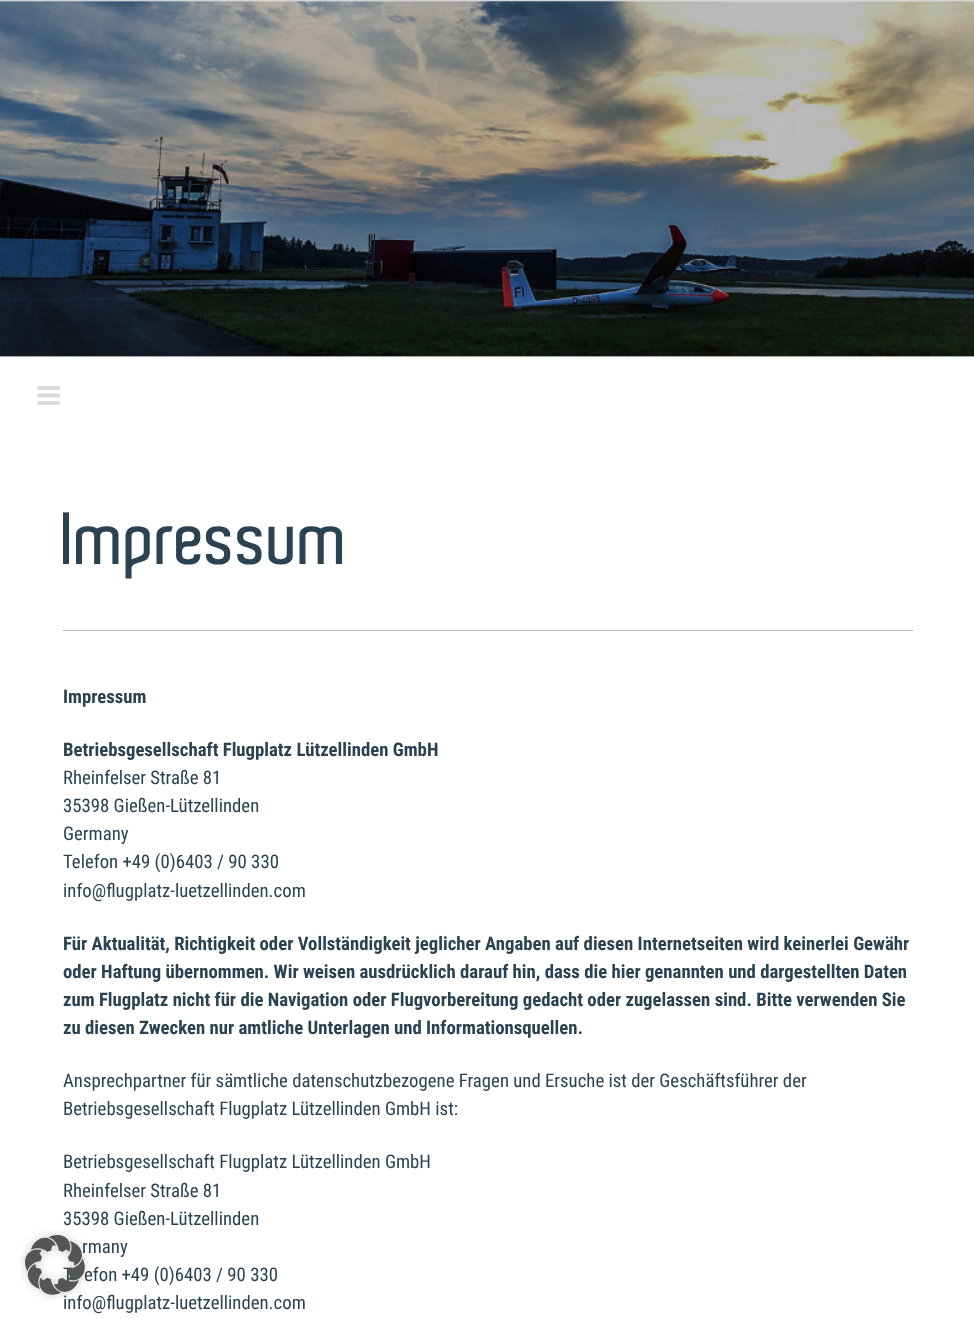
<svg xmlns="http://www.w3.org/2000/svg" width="974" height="1319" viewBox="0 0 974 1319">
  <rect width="100%" height="100%" fill="#ffffff"/>
  <text x="82" y="1253" font-family="Roboto Condensed" font-size="18.75" fill="#2a4251">rmany</text>
  <text x="63" y="1281" font-family="Roboto Condensed" font-size="18.75" fill="#2a4251">T</text>
  <text x="84" y="1281" font-family="Roboto Condensed" font-size="18.75" fill="#2a4251">efon +49 (0)6403 / 90 330</text>
  <text x="63" y="1309" font-family="Roboto Condensed" font-size="18.75" fill="#2a4251">info@flugplatz-luetzellinden.com</text>
  <image x="20" y="1230" width="70" height="70" href="img1.png"/>
  <rect x="0" y="0" width="974" height="1" fill="#d2d3d4"/>
  <rect x="0" y="356" width="974" height="1" fill="#d2d3d4"/>
  <image x="0" y="1" width="974" height="356" href="img2.png"/>
  <image x="37" y="386" width="23" height="19" href="img3.png"/>
  <text x="63" y="564" font-family="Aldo" font-size="71.25" font-weight="600" fill="#2a4251">Impressum</text>
  <rect x="63" y="630" width="850" height="1" fill="#b7b5b7"/>
  <text x="63" y="703" font-family="Roboto Condensed" font-size="18.75" font-weight="bold" fill="#2a4251">Impressum</text>
  <text x="63" y="756" font-family="Roboto Condensed" font-size="18.75" font-weight="bold" fill="#2a4251">Betriebsgesellschaft Flugplatz Lützellinden GmbH</text>
  <text x="63" y="784" font-family="Roboto Condensed" font-size="18.75" fill="#2a4251">Rheinfelser Straße 81</text>
  <text x="63" y="812" font-family="Roboto Condensed" font-size="18.75" fill="#2a4251">35398 Gießen-Lützellinden</text>
  <text x="63" y="840" font-family="Roboto Condensed" font-size="18.75" fill="#2a4251">Germany</text>
  <text x="63" y="868" font-family="Roboto Condensed" font-size="18.75" fill="#2a4251">Telefon +49 (0)6403 / 90 330</text>
  <text x="63" y="897" font-family="Roboto Condensed" font-size="18.75" fill="#2a4251">info@flugplatz-luetzellinden.com</text>
  <text x="63" y="950" font-family="Roboto Condensed" font-size="18.75" font-weight="bold" fill="#2a4251">Für Aktualität, Richtigkeit oder Vollständigkeit jeglicher Angaben auf diesen Internetseiten wird keinerlei Gewähr</text>
  <text x="63" y="978" font-family="Roboto Condensed" font-size="18.75" font-weight="bold" fill="#2a4251">oder Haftung übernommen. Wir weisen ausdrücklich darauf hin, dass die hier genannten und dargestellten Daten</text>
  <text x="63" y="1006" font-family="Roboto Condensed" font-size="18.75" font-weight="bold" fill="#2a4251">zum Flugplatz nicht für die Navigation oder Flugvorbereitung gedacht oder zugelassen sind. Bitte verwenden Sie</text>
  <text x="63" y="1034" font-family="Roboto Condensed" font-size="18.75" font-weight="bold" fill="#2a4251">zu diesen Zwecken nur amtliche Unterlagen und Informationsquellen.</text>
  <text x="63" y="1087" font-family="Roboto Condensed" font-size="18.75" fill="#2a4251">Ansprechpartner für sämtliche datenschutzbezogene Fragen und Ersuche ist der Geschäftsführer der</text>
  <text x="63" y="1115" font-family="Roboto Condensed" font-size="18.75" fill="#2a4251">Betriebsgesellschaft Flugplatz Lützellinden GmbH ist:</text>
  <text x="63" y="1168" font-family="Roboto Condensed" font-size="18.75" fill="#2a4251">Betriebsgesellschaft Flugplatz Lützellinden GmbH</text>
  <text x="63" y="1197" font-family="Roboto Condensed" font-size="18.75" fill="#2a4251">Rheinfelser Straße 81</text>
  <text x="63" y="1225" font-family="Roboto Condensed" font-size="18.75" fill="#2a4251">35398 Gießen-Lützellinden</text>
</svg>
